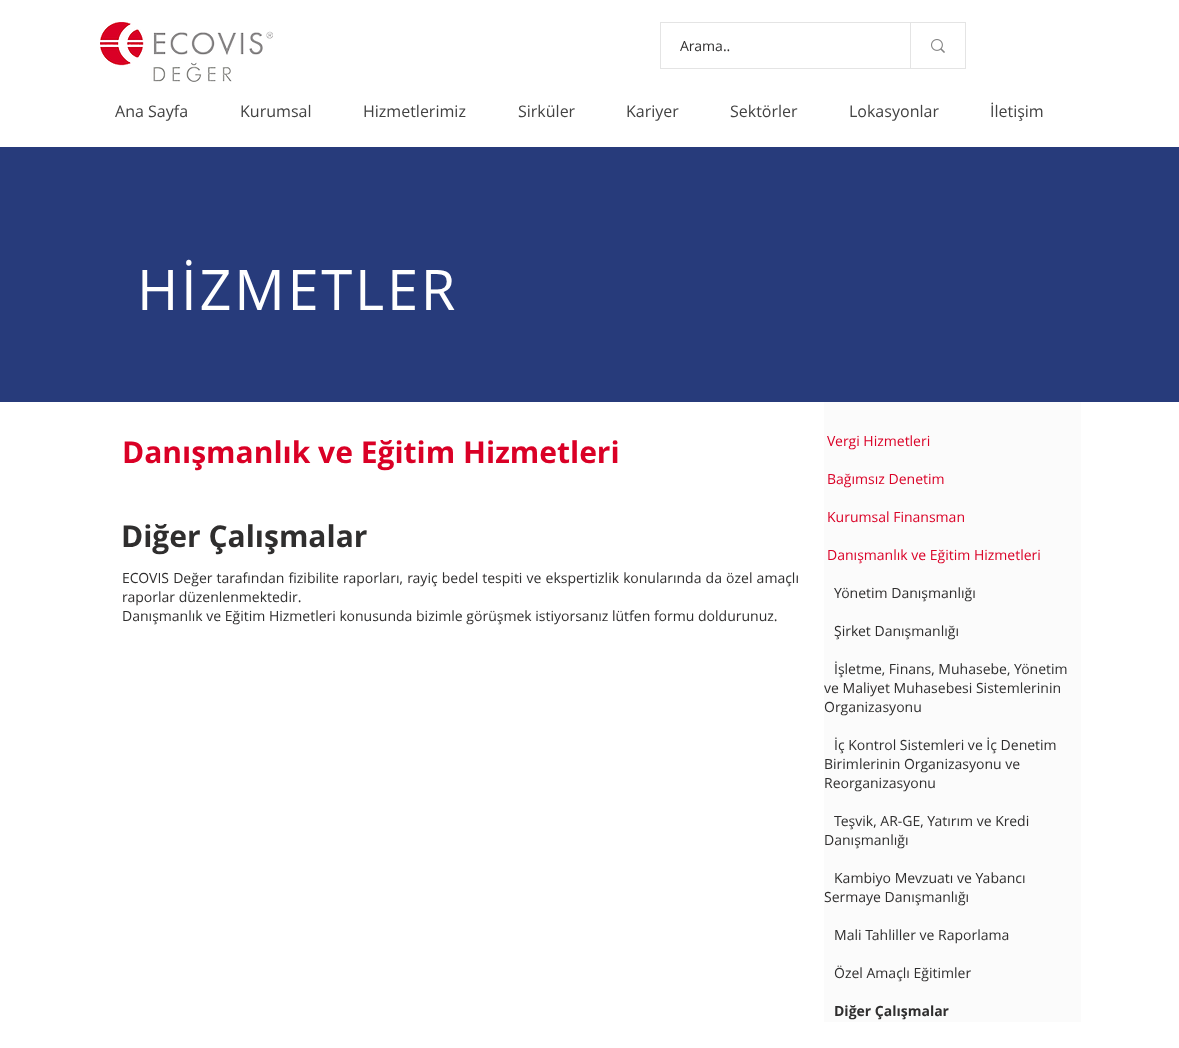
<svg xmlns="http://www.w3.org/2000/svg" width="1179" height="1048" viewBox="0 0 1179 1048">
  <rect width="100%" height="100%" fill="#ffffff"/>
  <image x="100" y="22" width="173" height="60" href="img1.png"/>
  <rect x="660.5" y="22.5" width="305" height="46" fill="none" stroke="#e4e4e4"/>
  <text x="680" y="51" font-family="Open Sans" font-size="14" fill="#2f2e2e">Arama..</text>
  <rect x="910" y="23" width="1" height="45" fill="#e4e4e4"/>
  <image x="931" y="39" width="14" height="14" href="img2.png"/>
  <text x="115" y="117" font-family="Open Sans" font-size="16" fill="#424242">Ana Sayfa</text>
  <text x="240" y="117" font-family="Open Sans" font-size="16" fill="#424242">Kurumsal</text>
  <text x="363" y="117" font-family="Open Sans" font-size="16" fill="#424242">Hizmetlerimiz</text>
  <text x="518" y="117" font-family="Open Sans" font-size="16" fill="#424242">Sirküler</text>
  <text x="626" y="117" font-family="Open Sans" font-size="16" fill="#424242">Kariyer</text>
  <text x="730" y="117" font-family="Open Sans" font-size="16" fill="#424242">Sektörler</text>
  <text x="849" y="117" font-family="Open Sans" font-size="16" fill="#424242">Lokasyonlar</text>
  <text x="990" y="117" font-family="Open Sans" font-size="16" fill="#424242">İletişim</text>
  <rect x="0" y="147" width="1179" height="255" fill="#273b7b"/>
  <text x="137" y="310" font-family="Open Sans" font-size="56" letter-spacing="2.75" fill="#ffffff">HİZMETLER</text>
  <rect x="824" y="402" width="257" height="620" fill="#fbfbfb"/>
  <text x="122" y="463" font-family="Open Sans" font-size="30" font-weight="bold" fill="#da0026">Danışmanlık ve Eğitim Hizmetleri</text>
  <text x="827" y="446" font-family="Open Sans" font-size="14" fill="#da0026">Vergi Hizmetleri</text>
  <text x="827" y="484" font-family="Open Sans" font-size="14" fill="#da0026">Bağımsız Denetim</text>
  <text x="827" y="522" font-family="Open Sans" font-size="14" fill="#da0026">Kurumsal Finansman</text>
  <text x="827" y="560" font-family="Open Sans" font-size="14" fill="#da0026">Danışmanlık ve Eğitim Hizmetleri</text>
  <text x="834" y="598" font-family="Open Sans" font-size="14" fill="#2f2e2e">Yönetim Danışmanlığı</text>
  <text x="834" y="636" font-family="Open Sans" font-size="14" fill="#2f2e2e">Şirket Danışmanlığı</text>
  <text x="834" y="674" font-family="Open Sans" font-size="14" fill="#2f2e2e">İşletme, Finans, Muhasebe, Yönetim</text>
  <text x="824" y="693" font-family="Open Sans" font-size="14" fill="#2f2e2e">ve Maliyet Muhasebesi Sistemlerinin</text>
  <text x="824" y="712" font-family="Open Sans" font-size="14" fill="#2f2e2e">Organizasyonu</text>
  <text x="834" y="750" font-family="Open Sans" font-size="14" fill="#2f2e2e">İç Kontrol Sistemleri ve İç Denetim</text>
  <text x="824" y="769" font-family="Open Sans" font-size="14" fill="#2f2e2e">Birimlerinin Organizasyonu ve</text>
  <text x="824" y="788" font-family="Open Sans" font-size="14" fill="#2f2e2e">Reorganizasyonu</text>
  <text x="834" y="826" font-family="Open Sans" font-size="14" fill="#2f2e2e">Teşvik, AR-GE, Yatırım ve Kredi</text>
  <text x="824" y="845" font-family="Open Sans" font-size="14" fill="#2f2e2e">Danışmanlığı</text>
  <text x="834" y="883" font-family="Open Sans" font-size="14" fill="#2f2e2e">Kambiyo Mevzuatı ve Yabancı</text>
  <text x="824" y="902" font-family="Open Sans" font-size="14" fill="#2f2e2e">Sermaye Danışmanlığı</text>
  <text x="834" y="940" font-family="Open Sans" font-size="14" fill="#2f2e2e">Mali Tahliller ve Raporlama</text>
  <text x="834" y="978" font-family="Open Sans" font-size="14" fill="#2f2e2e">Özel Amaçlı Eğitimler</text>
  <text x="834" y="1016" font-family="Open Sans" font-size="14" font-weight="bold" fill="#2f2e2e">Diğer Çalışmalar</text>
  <text x="121" y="547" font-family="Open Sans" font-size="30" font-weight="bold" fill="#2f2e2e">Diğer Çalışmalar</text>
  <text x="122" y="583" word-spacing="0.5" font-family="Open Sans" font-size="14" fill="#2f2e2e">ECOVIS Değer tarafından fizibilite raporları, rayiç bedel tespiti ve ekspertizlik konularında da özel amaçlı</text>
  <text x="122" y="602" font-family="Open Sans" font-size="14" fill="#2f2e2e">raporlar düzenlenmektedir.</text>
  <text x="122" y="621" font-family="Open Sans" font-size="14" fill="#2f2e2e">Danışmanlık ve Eğitim Hizmetleri konusunda bizimle görüşmek istiyorsanız lütfen formu doldurunuz.</text>
</svg>
